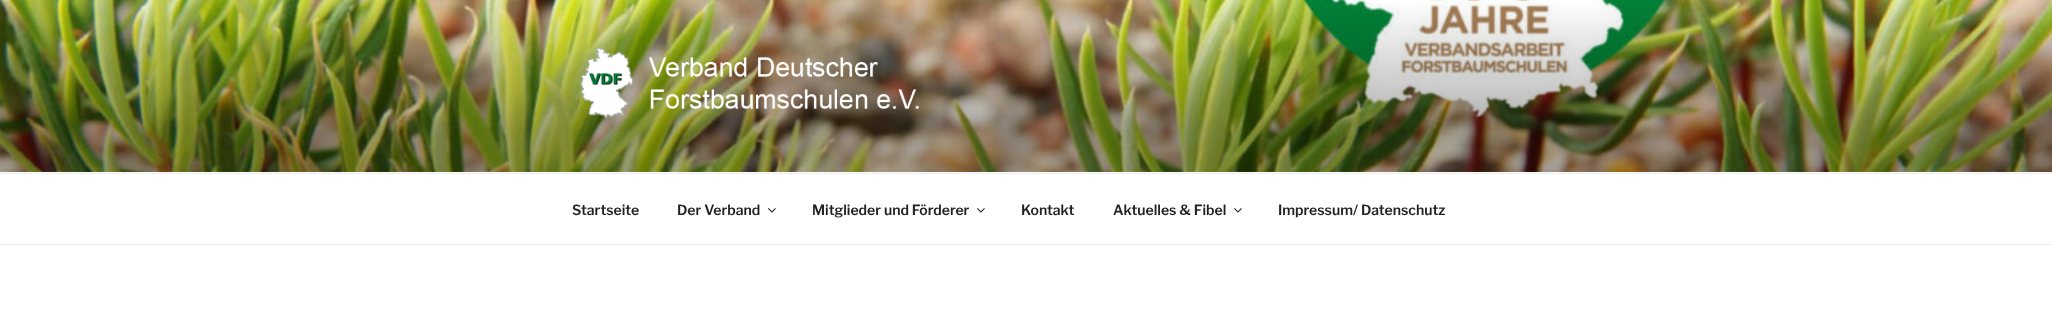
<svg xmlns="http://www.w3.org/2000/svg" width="2052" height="309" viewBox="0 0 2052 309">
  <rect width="100%" height="100%" fill="#ffffff"/>
  <rect x="0" y="172" width="2052" height="1" fill="#fafafa"/>
  <image x="0" y="0" width="2052" height="172" href="img1.png"/>
  <image x="580" y="48" width="339" height="70" href="img2.png"/>
  <rect x="0" y="173" width="2052" height="1" fill="#eeeeee"/>
  <rect x="0" y="244" width="2052" height="1" fill="#eeeeee"/>
  <text x="572" y="215" font-family="Libre Franklin" font-size="14" font-weight="600" fill="#222222">Startseite</text>
  <text x="677" y="215" font-family="Libre Franklin" font-size="14" font-weight="600" fill="#222222">Der Verband</text>
  <image x="768" y="208" width="8" height="5" href="img3.png"/>
  <text x="812" y="215" font-family="Libre Franklin" font-size="14" font-weight="600" fill="#222222">Mitglieder und Förderer</text>
  <image x="977" y="208" width="8" height="5" href="img3.png"/>
  <text x="1021" y="215" font-family="Libre Franklin" font-size="14" font-weight="600" fill="#222222">Kontakt</text>
  <text x="1113" y="215" font-family="Libre Franklin" font-size="14" font-weight="600" fill="#222222">Aktuelles &amp; Fibel</text>
  <image x="1234" y="208" width="8" height="5" href="img3.png"/>
  <text x="1278" y="215" font-family="Libre Franklin" font-size="14" font-weight="600" fill="#222222">Impressum/ Datenschutz</text>
</svg>
